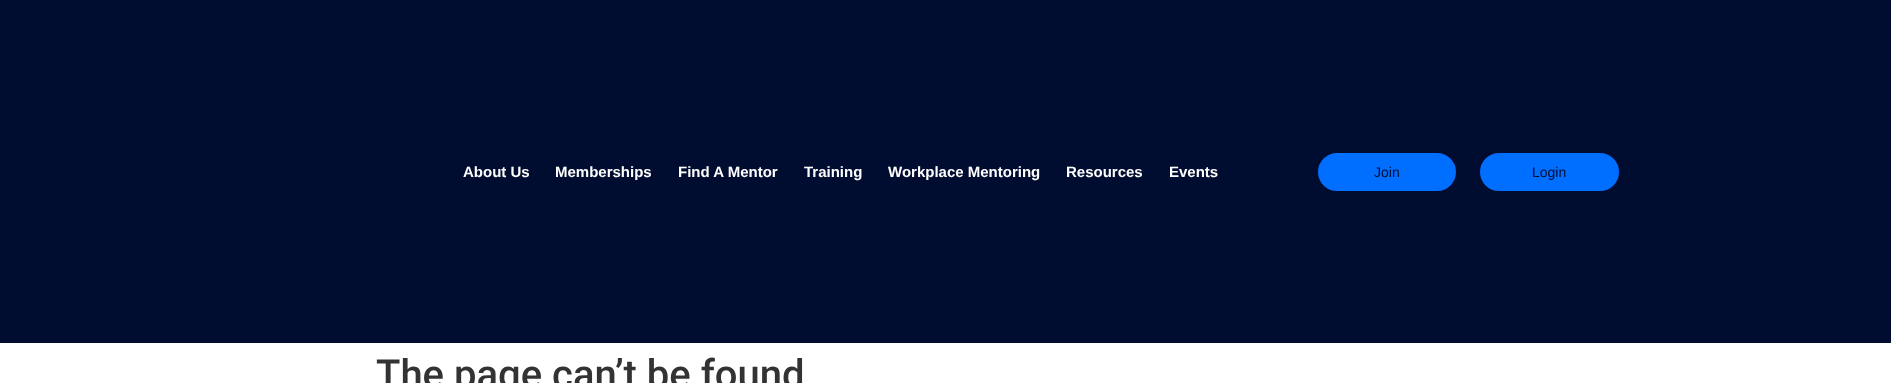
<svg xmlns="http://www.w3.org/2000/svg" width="1891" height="383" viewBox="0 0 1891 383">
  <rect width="100%" height="100%" fill="#ffffff"/>
  <rect x="0" y="0" width="1891" height="343" fill="#000c30"/>
  <text x="463" y="177" font-family="Liberation Sans" font-size="15" font-weight="bold" fill="#ffffff">About Us</text>
  <text x="555" y="177" font-family="Liberation Sans" font-size="15" font-weight="bold" fill="#ffffff">Memberships</text>
  <text x="678" y="177" font-family="Liberation Sans" font-size="15" font-weight="bold" fill="#ffffff">Find A Mentor</text>
  <text x="804" y="177" font-family="Liberation Sans" font-size="15" font-weight="bold" fill="#ffffff">Training</text>
  <text x="888" y="177" font-family="Liberation Sans" font-size="15" font-weight="bold" fill="#ffffff">Workplace Mentoring</text>
  <text x="1066" y="177" font-family="Liberation Sans" font-size="15" font-weight="bold" fill="#ffffff">Resources</text>
  <text x="1169" y="177" font-family="Liberation Sans" font-size="15" font-weight="bold" fill="#ffffff">Events</text>
  <rect x="1317" y="152" width="140" height="40" rx="20" fill="#006eff" stroke="#000c30" stroke-width="2"/>
  <text x="1374" y="177" font-family="Liberation Sans" font-size="14" fill="#000c30">Join</text>
  <rect x="1479" y="152" width="141" height="40" rx="20" fill="#006eff" stroke="#000c30" stroke-width="2"/>
  <text x="1532" y="177" font-family="Liberation Sans" font-size="14" fill="#000c30">Login</text>
  <text x="376" y="388" font-family="Roboto" font-size="40" font-weight="500" fill="#333333">The page can’t be found</text>
</svg>
